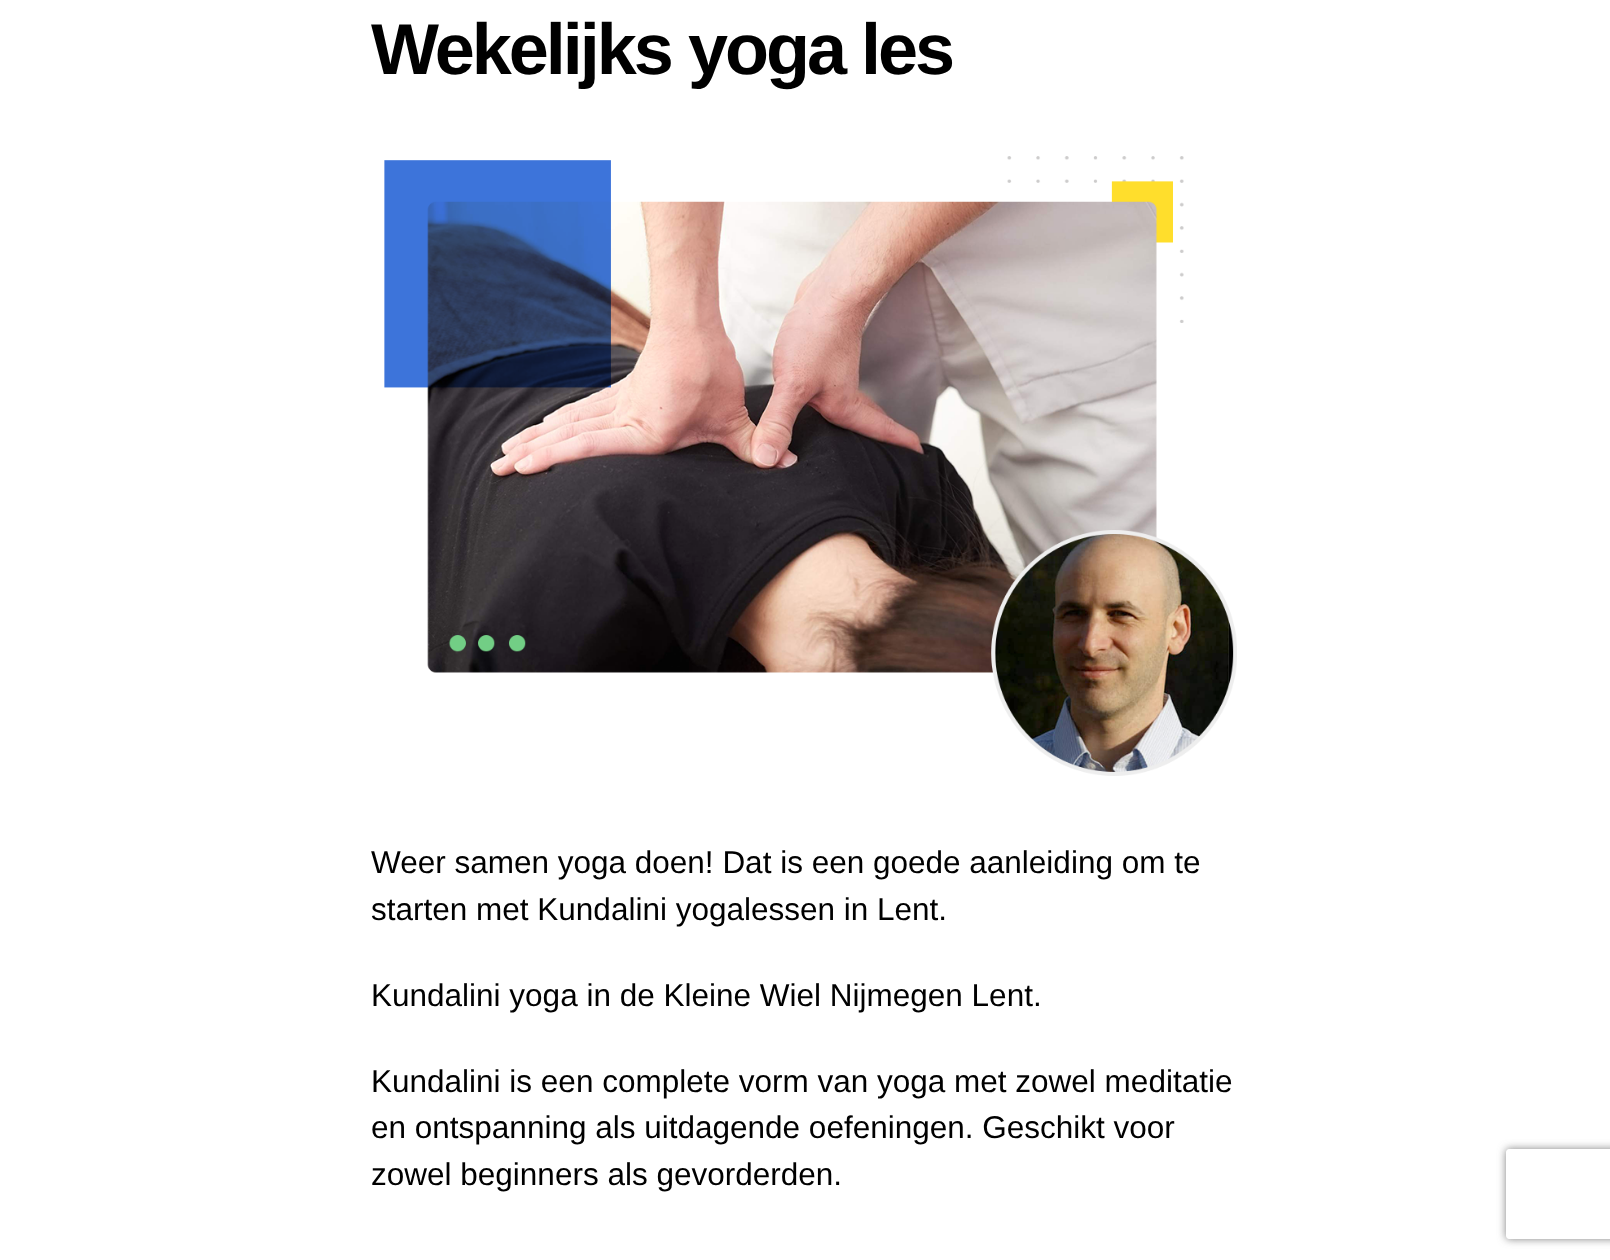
<svg xmlns="http://www.w3.org/2000/svg" width="1610" height="1260" viewBox="0 0 1610 1260">
  <defs>
    <clipPath id="clip1"><path d="M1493 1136H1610V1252H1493ZM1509 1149H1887C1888.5 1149 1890 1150.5 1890 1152V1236C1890 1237.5 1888.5 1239 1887 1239H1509C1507.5 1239 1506 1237.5 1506 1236V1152C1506 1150.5 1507.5 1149 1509 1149Z" clip-rule="evenodd"/></clipPath>
    <filter id="blur1" x="-50%" y="-200%" width="200%" height="500%"><feGaussianBlur stdDeviation="4"/></filter>
  </defs>
  <rect width="100%" height="100%" fill="#ffffff"/>
  <text x="371" y="74" font-family="Liberation Sans" font-size="72" font-weight="bold" letter-spacing="-3" fill="#000000">Wekelijks yoga les</text>
  <image x="384" y="156" width="853" height="620" href="img1.png"/>
  <text x="371" y="873" font-family="Liberation Sans" font-size="31.5" fill="#000000">Weer samen yoga doen! Dat is een goede aanleiding om te</text>
  <text x="371" y="920" font-family="Liberation Sans" font-size="31.5" fill="#000000">starten met Kundalini yogalessen in Lent.</text>
  <text x="371" y="1006" font-family="Liberation Sans" font-size="31.5" fill="#000000">Kundalini yoga in de Kleine Wiel Nijmegen Lent.</text>
  <text x="371" y="1092" font-family="Liberation Sans" font-size="31.5" fill="#000000">Kundalini is een complete vorm van yoga met zowel meditatie</text>
  <text x="371" y="1138" font-family="Liberation Sans" font-size="31.5" fill="#000000">en ontspanning als uitdagende oefeningen. Geschikt voor</text>
  <text x="371" y="1185" font-family="Liberation Sans" font-size="31.5" fill="#000000">zowel beginners als gevorderden.</text>
  <g clip-path="url(#clip1)">
    <rect x="1506" y="1149" width="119" height="90" rx="3" fill="#808080" filter="url(#blur1)"/>
  </g>
</svg>
